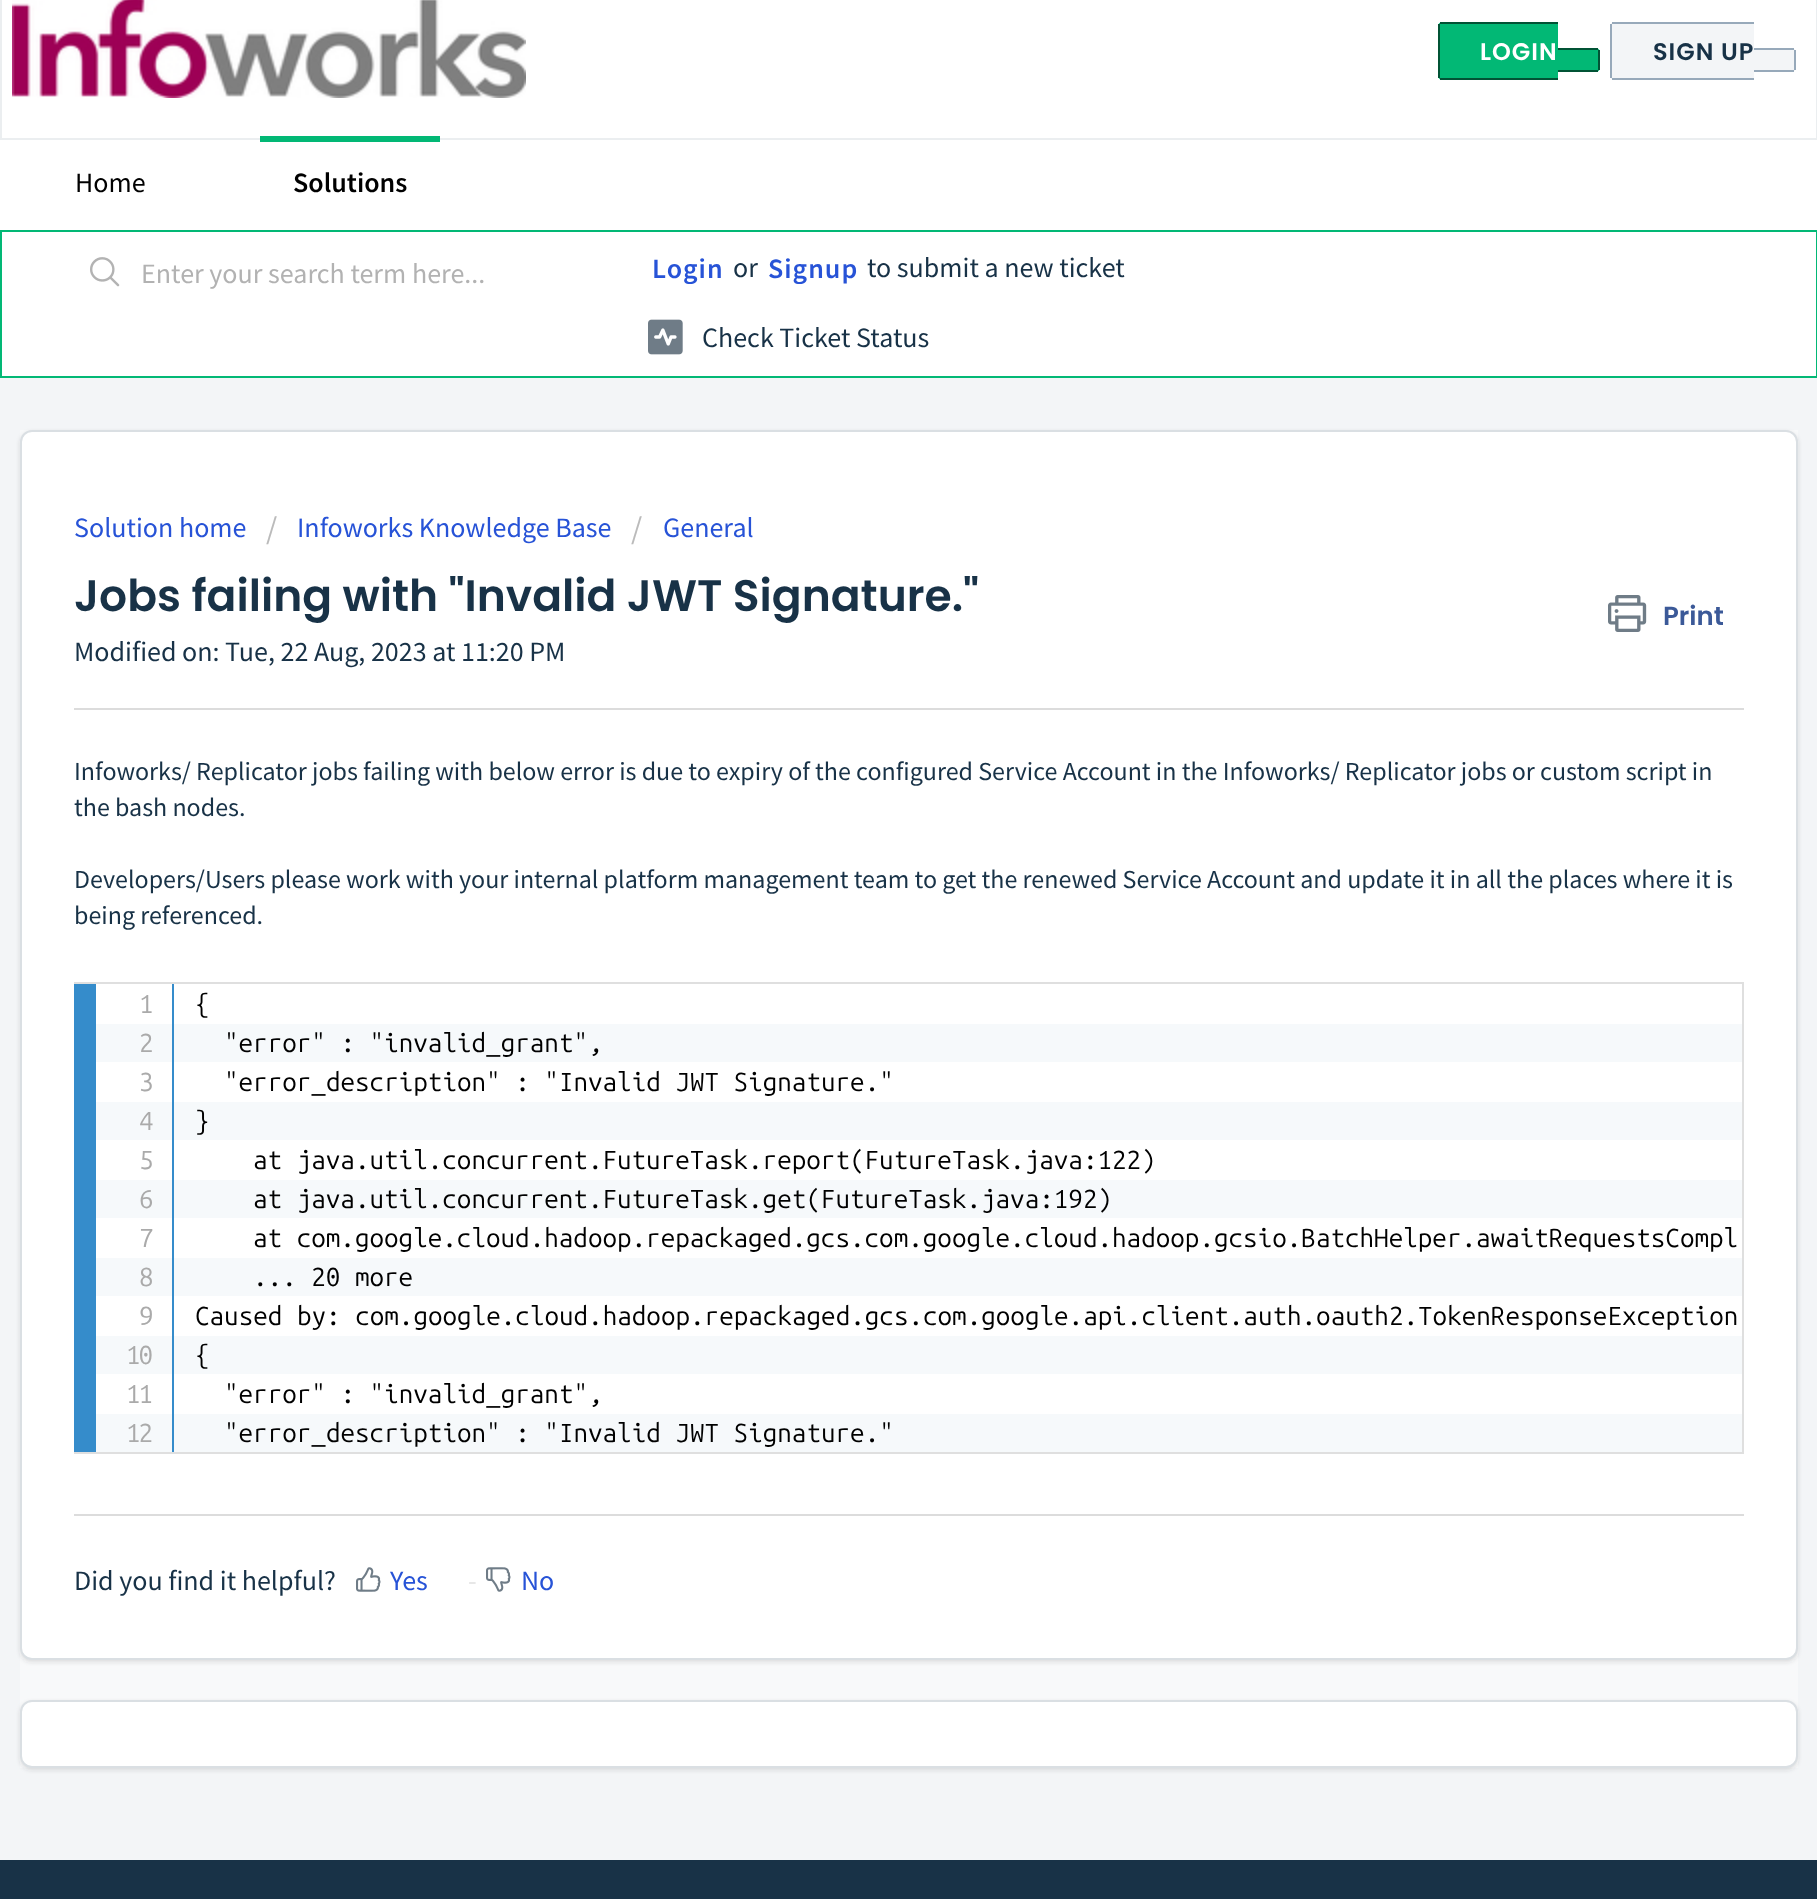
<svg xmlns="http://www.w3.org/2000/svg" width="1817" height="1899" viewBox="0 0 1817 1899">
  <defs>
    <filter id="blur1" x="-50%" y="-200%" width="200%" height="500%"><feGaussianBlur stdDeviation="2"/></filter>
  </defs>
  <rect width="100%" height="100%" fill="#f3f5f7"/>
  <rect x="1" y="-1" width="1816" height="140" fill="#ffffff" stroke="#ebeef0" stroke-width="2"/>
  <image x="12" y="0" width="514" height="98" href="img1.png"/>
  <path d="M1442 22H1558V80H1442C1440 80 1438 78 1438 76V26C1438 24 1440 22 1442 22Z" fill="#02b875"/>
  <text x="1480" y="60" font-family="Poppins" font-size="24" font-weight="600" letter-spacing="1" fill="#ffffff">LOGIN</text>
  <rect x="1440" y="22" width="118" height="2" fill="#015335"/>
  <rect x="1440" y="78" width="118" height="2" fill="#015335"/>
  <rect x="1438" y="24" width="2" height="54" fill="#015335"/>
  <path d="M1558 48H1596C1598 48 1600 50 1600 52V68C1600 70 1598 72 1596 72H1558Z" fill="#02b875"/>
  <rect x="1558" y="48" width="40" height="2" fill="#015335"/>
  <rect x="1598" y="50" width="2" height="20" fill="#015335"/>
  <rect x="1558" y="70" width="40" height="2" fill="#015335"/>
  <path d="M1614 22H1754V80H1614C1612 80 1610 78 1610 76V26C1610 24 1612 22 1614 22Z" fill="#f3f5f7"/>
  <text x="1653" y="60" font-family="Poppins" font-size="24" font-weight="600" letter-spacing="1" fill="#183247">SIGN UP</text>
  <rect x="1612" y="22" width="142" height="2" fill="#97a9ba"/>
  <rect x="1612" y="78" width="142" height="2" fill="#97a9ba"/>
  <rect x="1610" y="24" width="2" height="54" fill="#97a9ba"/>
  <path d="M1754 48H1792C1794 48 1796 50 1796 52V68C1796 70 1794 72 1792 72H1754Z" fill="#f3f5f7"/>
  <rect x="1754" y="48" width="40" height="2" fill="#97a9ba"/>
  <rect x="1794" y="50" width="2" height="20" fill="#97a9ba"/>
  <rect x="1754" y="70" width="40" height="2" fill="#97a9ba"/>
  <rect x="0" y="140" width="1817" height="90" fill="#ffffff"/>
  <text x="75" y="192" font-family="Source Sans Pro" font-size="28" fill="#000000">Home</text>
  <rect x="260" y="136" width="180" height="6" fill="#02b875"/>
  <text x="293" y="192" font-family="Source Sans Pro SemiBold" font-size="28" font-weight="600" fill="#000000">Solutions</text>
  <rect x="1" y="231" width="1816" height="146" fill="#ffffff" stroke="#02b875" stroke-width="2"/>
  <image x="90" y="257" width="30" height="30" href="img2.png"/>
  <text x="141" y="283" font-family="Source Sans Pro" font-size="28" fill="#b2b2b2">Enter your search term here...</text>
  <text x="652" y="278" font-family="Source Sans Pro SemiBold" font-size="28" font-weight="600" letter-spacing="1" fill="#2753d7">Login</text>
  <text x="733" y="277" font-family="Source Sans Pro" font-size="28" fill="#183247">or</text>
  <text x="768" y="278" font-family="Source Sans Pro SemiBold" font-size="28" font-weight="600" letter-spacing="1" fill="#2753d7">Signup</text>
  <text x="867" y="277" font-family="Source Sans Pro" font-size="28" fill="#183247">to submit a new ticket</text>
  <image x="648" y="319" width="35" height="36" href="img3.png"/>
  <text x="702" y="347" font-family="Source Sans Pro" font-size="28" fill="#183247">Check Ticket Status</text>
  <rect x="20" y="430" width="1778" height="1338" fill="#f8f9fa"/>
  <rect x="20" y="432" width="1778" height="1230" rx="12" fill="#3f3f44" fill-opacity="0.15" filter="url(#blur1)"/>
  <rect x="21" y="431" width="1776" height="1228" rx="11" fill="#ffffff" stroke="#dadfe3" stroke-width="2"/>
  <text x="74" y="537" font-family="Source Sans Pro" font-size="28" fill="#2753d7">Solution home</text>
  <text x="266" y="539" font-family="Source Sans Pro" font-size="32" fill="#bbbbbb">/</text>
  <text x="297" y="537" font-family="Source Sans Pro" font-size="28" fill="#2753d7">Infoworks Knowledge Base</text>
  <text x="631" y="539" font-family="Source Sans Pro" font-size="32" fill="#bbbbbb">/</text>
  <text x="663" y="537" font-family="Source Sans Pro" font-size="28" fill="#2753d7">General</text>
  <text x="74" y="611" font-family="Poppins" font-size="44" font-weight="600" fill="#183247">Jobs failing with "Invalid JWT Signature."</text>
  <image x="1608" y="595" width="39" height="37" href="img4.png"/>
  <text x="1663" y="625" font-family="Poppins" font-size="26" font-weight="600" fill="#3b5998">Print</text>
  <text x="74" y="661" font-family="Source Sans Pro" font-size="28" fill="#183247">Modified on: Tue, 22 Aug, 2023 at 11:20 PM</text>
  <rect x="74" y="708" width="1670" height="2" fill="#dcdcdc"/>
  <text x="74" y="780" font-family="Source Sans Pro" font-size="26" fill="#183247">Infoworks/ Replicator jobs failing with below error is due to expiry of the configured Service Account in the Infoworks/ Replicator jobs or custom script in</text>
  <text x="74" y="816" font-family="Source Sans Pro" font-size="26" fill="#183247">the bash nodes.</text>
  <text x="74" y="888" font-family="Source Sans Pro" font-size="26" fill="#183247">Developers/Users please work with your internal platform management team to get the renewed Service Account and update it in all the places where it is</text>
  <text x="74" y="924" font-family="Source Sans Pro" font-size="26" fill="#183247">being referenced.</text>
  <rect x="75" y="983" width="1668" height="470" fill="none" stroke="#dfdfdf" stroke-width="2"/>
  <rect x="74" y="984" width="22" height="468" fill="#358ccb"/>
  <rect x="96" y="1024" width="1646" height="38" fill="#f6f9fb"/>
  <rect x="96" y="1102" width="1646" height="38" fill="#f6f9fb"/>
  <rect x="96" y="1180" width="1646" height="38" fill="#f6f9fb"/>
  <rect x="96" y="1258" width="1646" height="38" fill="#f6f9fb"/>
  <rect x="96" y="1336" width="1646" height="38" fill="#f6f9fb"/>
  <rect x="96" y="1414" width="1646" height="38" fill="#f6f9fb"/>
  <rect x="172" y="984" width="2" height="468" fill="#358ccb"/>
  <text x="139" y="1013" font-family="Ubuntu Mono" font-size="26" letter-spacing="-2" fill="#aaaaaa">1</text>
  <text x="139" y="1052" font-family="Ubuntu Mono" font-size="26" letter-spacing="-2" fill="#aaaaaa">2</text>
  <text x="139" y="1091" font-family="Ubuntu Mono" font-size="26" letter-spacing="-2" fill="#aaaaaa">3</text>
  <text x="139" y="1130" font-family="Ubuntu Mono" font-size="26" letter-spacing="-2" fill="#aaaaaa">4</text>
  <text x="139" y="1169" font-family="Ubuntu Mono" font-size="26" letter-spacing="-2" fill="#aaaaaa">5</text>
  <text x="139" y="1208" font-family="Ubuntu Mono" font-size="26" letter-spacing="-2" fill="#aaaaaa">6</text>
  <text x="139" y="1247" font-family="Ubuntu Mono" font-size="26" letter-spacing="-2" fill="#aaaaaa">7</text>
  <text x="139" y="1286" font-family="Ubuntu Mono" font-size="26" letter-spacing="-2" fill="#aaaaaa">8</text>
  <text x="139" y="1325" font-family="Ubuntu Mono" font-size="26" letter-spacing="-2" fill="#aaaaaa">9</text>
  <text x="126" y="1364" font-family="Ubuntu Mono" font-size="26" letter-spacing="-2" fill="#aaaaaa">10</text>
  <text x="126" y="1403" font-family="Ubuntu Mono" font-size="26" letter-spacing="-2" fill="#aaaaaa">11</text>
  <text x="126" y="1442" font-family="Ubuntu Mono" font-size="26" letter-spacing="-2" fill="#aaaaaa">12</text>
  <text x="195" y="1013" font-family="Ubuntu Mono" font-size="26" fill="#000000">{</text>
  <text x="224" y="1052" font-family="Ubuntu Mono" font-size="26" fill="#000000">"error" : "invalid_grant",</text>
  <text x="224" y="1091" font-family="Ubuntu Mono" font-size="26" fill="#000000">"error_description" : "Invalid JWT Signature."</text>
  <text x="195" y="1130" font-family="Ubuntu Mono" font-size="26" fill="#000000">}</text>
  <text x="253" y="1169" font-family="Ubuntu Mono" font-size="26" fill="#000000">at java.util.concurrent.FutureTask.report(FutureTask.java:122)</text>
  <text x="253" y="1208" font-family="Ubuntu Mono" font-size="26" fill="#000000">at java.util.concurrent.FutureTask.get(FutureTask.java:192)</text>
  <text x="253" y="1247" font-family="Ubuntu Mono" font-size="26" fill="#000000">at com.google.cloud.hadoop.repackaged.gcs.com.google.cloud.hadoop.gcsio.BatchHelper.awaitRequestsCompl</text>
  <text x="253" y="1286" font-family="Ubuntu Mono" font-size="26" fill="#000000">... 20 more</text>
  <text x="195" y="1325" font-family="Ubuntu Mono" font-size="26" fill="#000000">Caused by: com.google.cloud.hadoop.repackaged.gcs.com.google.api.client.auth.oauth2.TokenResponseException</text>
  <text x="195" y="1364" font-family="Ubuntu Mono" font-size="26" fill="#000000">{</text>
  <text x="224" y="1403" font-family="Ubuntu Mono" font-size="26" fill="#000000">"error" : "invalid_grant",</text>
  <text x="224" y="1442" font-family="Ubuntu Mono" font-size="26" fill="#000000">"error_description" : "Invalid JWT Signature."</text>
  <rect x="74" y="1514" width="1670" height="2" fill="#dcdcdc"/>
  <text x="74" y="1590" font-family="Source Sans Pro" font-size="28" fill="#183247">Did you find it helpful?</text>
  <image x="356" y="1567" width="25" height="25" href="img5.png"/>
  <text x="390" y="1590" font-family="Source Sans Pro" font-size="28" fill="#2753d7">Yes</text>
  <text x="468" y="1590" font-family="Source Sans Pro" font-size="28" fill="#e5e5e5">-</text>
  <image x="486" y="1567" width="25" height="25" href="img6.png"/>
  <text x="521" y="1590" font-family="Source Sans Pro" font-size="28" fill="#2753d7">No</text>
  <rect x="20" y="1702" width="1778" height="68" rx="12" fill="#3f3f44" fill-opacity="0.15" filter="url(#blur1)"/>
  <rect x="21" y="1701" width="1776" height="66" rx="11" fill="#ffffff" stroke="#dadfe3" stroke-width="2"/>
  <rect x="0" y="1860" width="1817" height="39" fill="#183247"/>
</svg>
